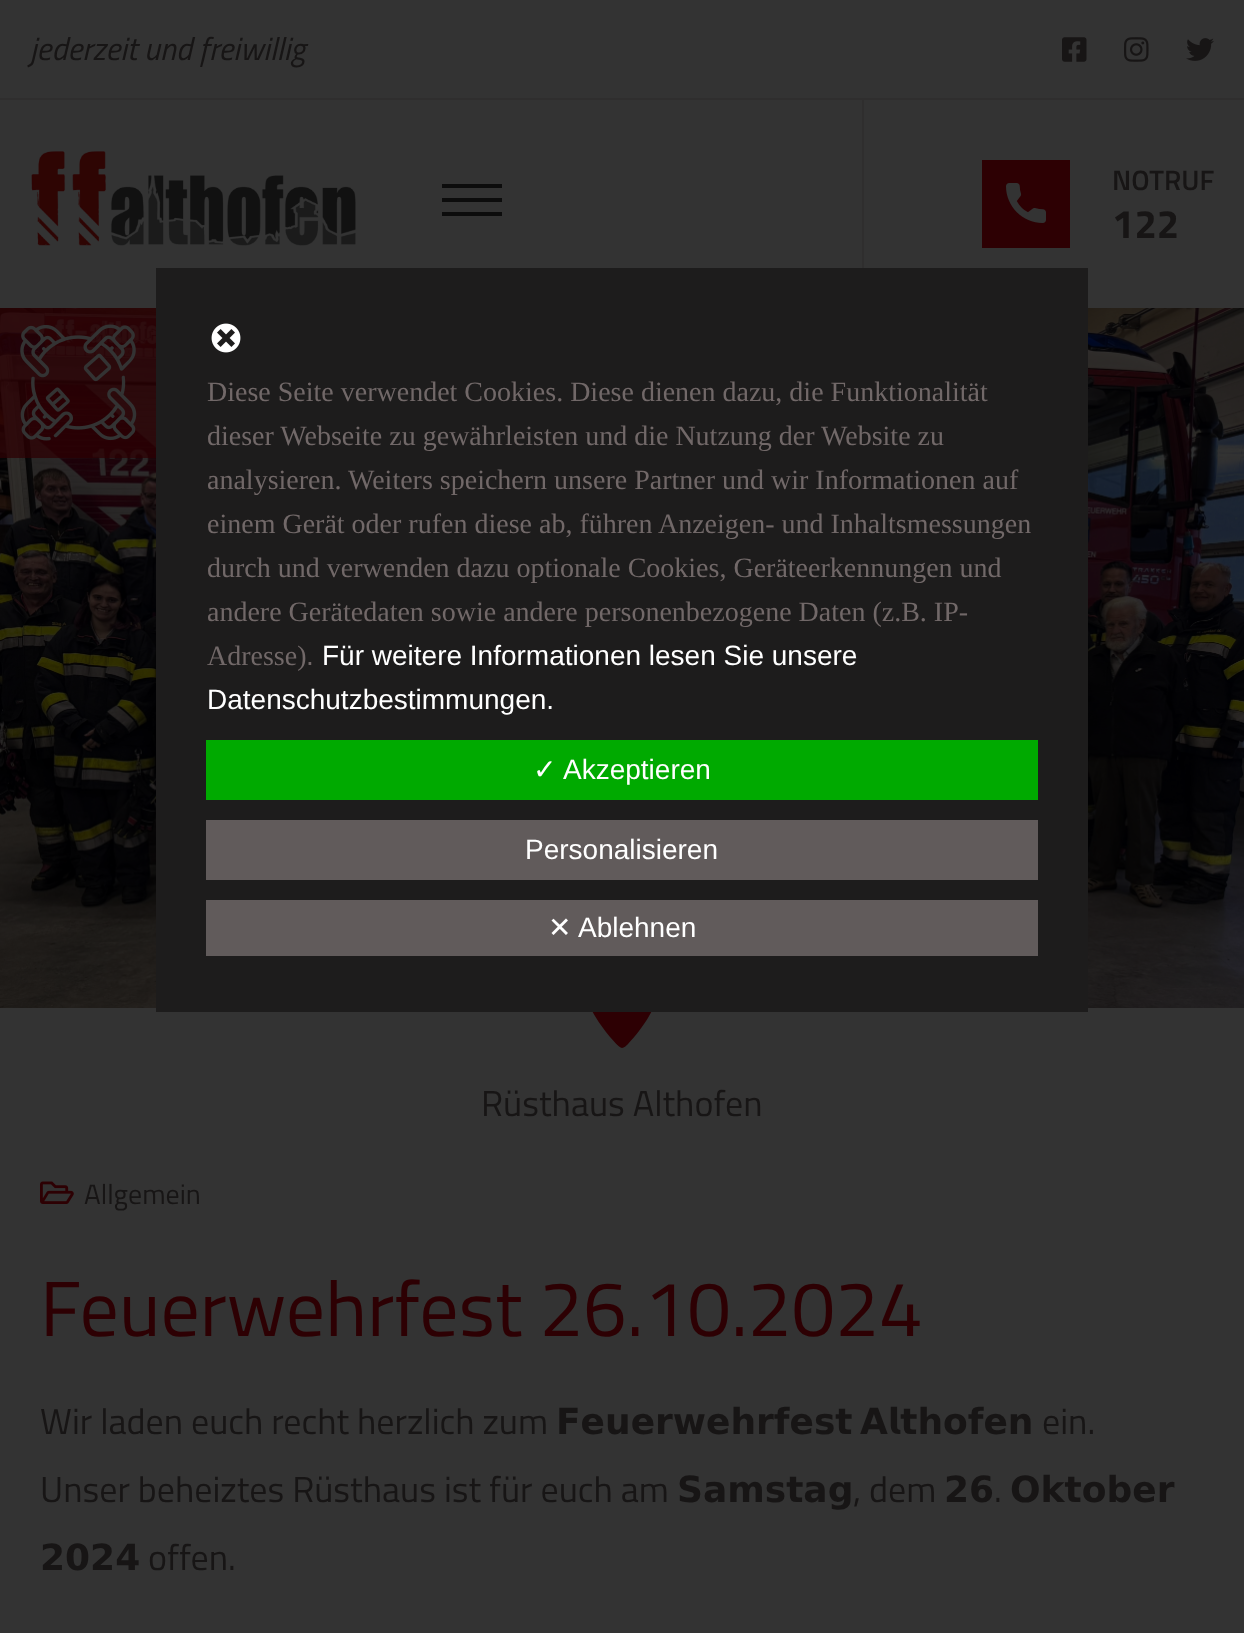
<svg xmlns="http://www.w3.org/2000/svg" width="1244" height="1633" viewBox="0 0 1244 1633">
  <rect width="100%" height="100%" fill="#333333"/>
  <rect x="0" y="98" width="1244" height="2" fill="#2f2e2e"/>
  <text x="30" y="60" font-family="Titillium Web" font-size="32" font-style="italic" fill="#171515">jederzeit und freiwillig</text>
  <image x="1062" y="37" width="25" height="25" href="img1.png"/>
  <image x="1124" y="37" width="25" height="25" href="img2.png"/>
  <image x="1186" y="38" width="28" height="23" href="img3.png"/>
  <image x="31" y="151" width="325" height="95" href="img4.png"/>
  <rect x="442" y="184" width="60" height="4" fill="#0c0c0c"/>
  <rect x="442" y="198" width="60" height="4" fill="#0c0c0c"/>
  <rect x="442" y="212" width="60" height="4" fill="#0c0c0c"/>
  <rect x="862" y="100" width="2" height="168" fill="#2f2e2e"/>
  <rect x="982" y="160" width="88" height="88" fill="#2d0003"/>
  <image x="1006" y="183" width="40" height="40" href="img5.png"/>
  <text x="1112" y="190" font-family="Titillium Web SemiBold" font-size="28" font-weight="600" fill="#171515">NOTRUF</text>
  <text x="1112" y="238" font-family="Titillium Web" font-size="40" font-weight="bold" fill="#171515">122</text>
  <image x="0" y="308" width="1244" height="700" href="img7.png"/>
  <path d="M596 960C620 935 661 954 659 988C658 1007 641 1030 628 1044C627 1045 624 1048 622 1048C619 1048 612 1039 610 1037C593 1016 571 984 596 960ZM607 1001C627 1020 656 991 637 971C617 952 588 981 607 1001Z" fill="#2d0003"/>
  <rect x="156" y="268" width="932" height="744" fill="#1d1c1c"/>
  <image x="211" y="323" width="30" height="30" href="img6.png"/>
  <text x="207" y="401" font-family="Liberation Serif" font-size="28" fill="#716868">Diese Seite verwendet Cookies. Diese dienen dazu, die Funktionalität</text>
  <text x="207" y="445" font-family="Liberation Serif" font-size="28" fill="#716868">dieser Webseite zu gewährleisten und die Nutzung der Website zu</text>
  <text x="207" y="489" font-family="Liberation Serif" font-size="28" fill="#716868">analysieren. Weiters speichern unsere Partner und wir Informationen auf</text>
  <text x="207" y="533" font-family="Liberation Serif" font-size="28" fill="#716868">einem Gerät oder rufen diese ab, führen Anzeigen- und Inhaltsmessungen</text>
  <text x="207" y="577" font-family="Liberation Serif" font-size="28" fill="#716868">durch und verwenden dazu optionale Cookies, Geräteerkennungen und</text>
  <text x="207" y="621" font-family="Liberation Serif" font-size="28" fill="#716868">andere Gerätedaten sowie andere personenbezogene Daten (z.B. IP-</text>
  <text x="207" y="665" font-family="Liberation Serif" font-size="28" fill="#716868">Adresse)</text>
  <text x="306" y="665" font-family="Liberation Sans" font-size="28" fill="#716868">.</text>
  <text x="322" y="665" font-family="Liberation Sans" font-size="28" fill="#ffffff">Für weitere Informationen lesen Sie unsere</text>
  <text x="207" y="709" font-family="Liberation Sans" font-size="28" fill="#ffffff">Datenschutzbestimmungen.</text>
  <rect x="206" y="740" width="832" height="60" fill="#00aa00"/>
  <text x="533" y="779" font-family="DejaVu Sans" font-size="28" fill="#ffffff">✓</text>
  <text x="563" y="779" font-family="Liberation Sans" font-size="28" fill="#ffffff">Akzeptieren</text>
  <rect x="206" y="820" width="832" height="60" fill="#615b5b"/>
  <text x="525" y="859" font-family="Liberation Sans" font-size="28" fill="#ffffff">Personalisieren</text>
  <rect x="206" y="900" width="832" height="56" fill="#615b5b"/>
  <text x="548" y="937" font-family="DejaVu Sans" font-size="28" fill="#ffffff">✕</text>
  <text x="578" y="937" font-family="Liberation Sans" font-size="28" fill="#ffffff">Ablehnen</text>
  <rect x="0" y="308" width="156" height="150" fill="#2d0003" fill-opacity="0.74"/>
  <image x="20" y="324" width="117" height="117" href="img8.png"/>
  <text x="481" y="1116" font-family="Titillium Web" font-size="36" fill="#171515">Rüsthaus Althofen</text>
  <image x="40" y="1181" width="34" height="23" href="img9.png"/>
  <text x="84" y="1204" font-family="Titillium Web" font-size="28" fill="#171515">Allgemein</text>
  <text x="40" y="1336" font-family="Titillium Web" font-size="78" fill="#2d0003">Feuerwehrfest 26.10.2024</text>
  <text x="40" y="1434" font-family="Titillium Web" font-size="36" fill="#171515">Wir laden euch recht herzlich zum</text>
  <text x="556" y="1434" font-family="DejaVu Sans" font-size="36" font-weight="bold" fill="#171515">𝗙𝗲𝘂𝗲𝗿𝘄𝗲𝗵𝗿𝗳𝗲𝘀𝘁</text>
  <text x="860" y="1434" font-family="DejaVu Sans" font-size="36" font-weight="bold" fill="#171515">𝗔𝗹𝘁𝗵𝗼𝗳𝗲𝗻</text>
  <text x="1042" y="1434" font-family="Titillium Web" font-size="36" fill="#171515">ein.</text>
  <text x="40" y="1502" font-family="Titillium Web" font-size="36" fill="#171515">Unser beheiztes Rüsthaus ist für euch am</text>
  <text x="677" y="1502" font-family="DejaVu Sans" font-size="36" font-weight="bold" fill="#171515">𝗦𝗮𝗺𝘀𝘁𝗮𝗴</text>
  <text x="853" y="1502" font-family="Titillium Web" font-size="36" fill="#171515">, dem</text>
  <text x="944" y="1502" font-family="DejaVu Sans" font-size="36" font-weight="bold" fill="#171515">𝟮𝟲</text>
  <text x="994" y="1502" font-family="Titillium Web" font-size="36" fill="#171515">.</text>
  <text x="1010" y="1502" font-family="DejaVu Sans" font-size="36" font-weight="bold" fill="#171515">𝗢𝗸𝘁𝗼𝗯𝗲𝗿</text>
  <text x="40" y="1570" font-family="DejaVu Sans" font-size="36" font-weight="bold" fill="#171515">𝟮𝟬𝟮𝟰</text>
  <text x="148" y="1570" font-family="Titillium Web" font-size="36" fill="#171515">offen.</text>
</svg>
